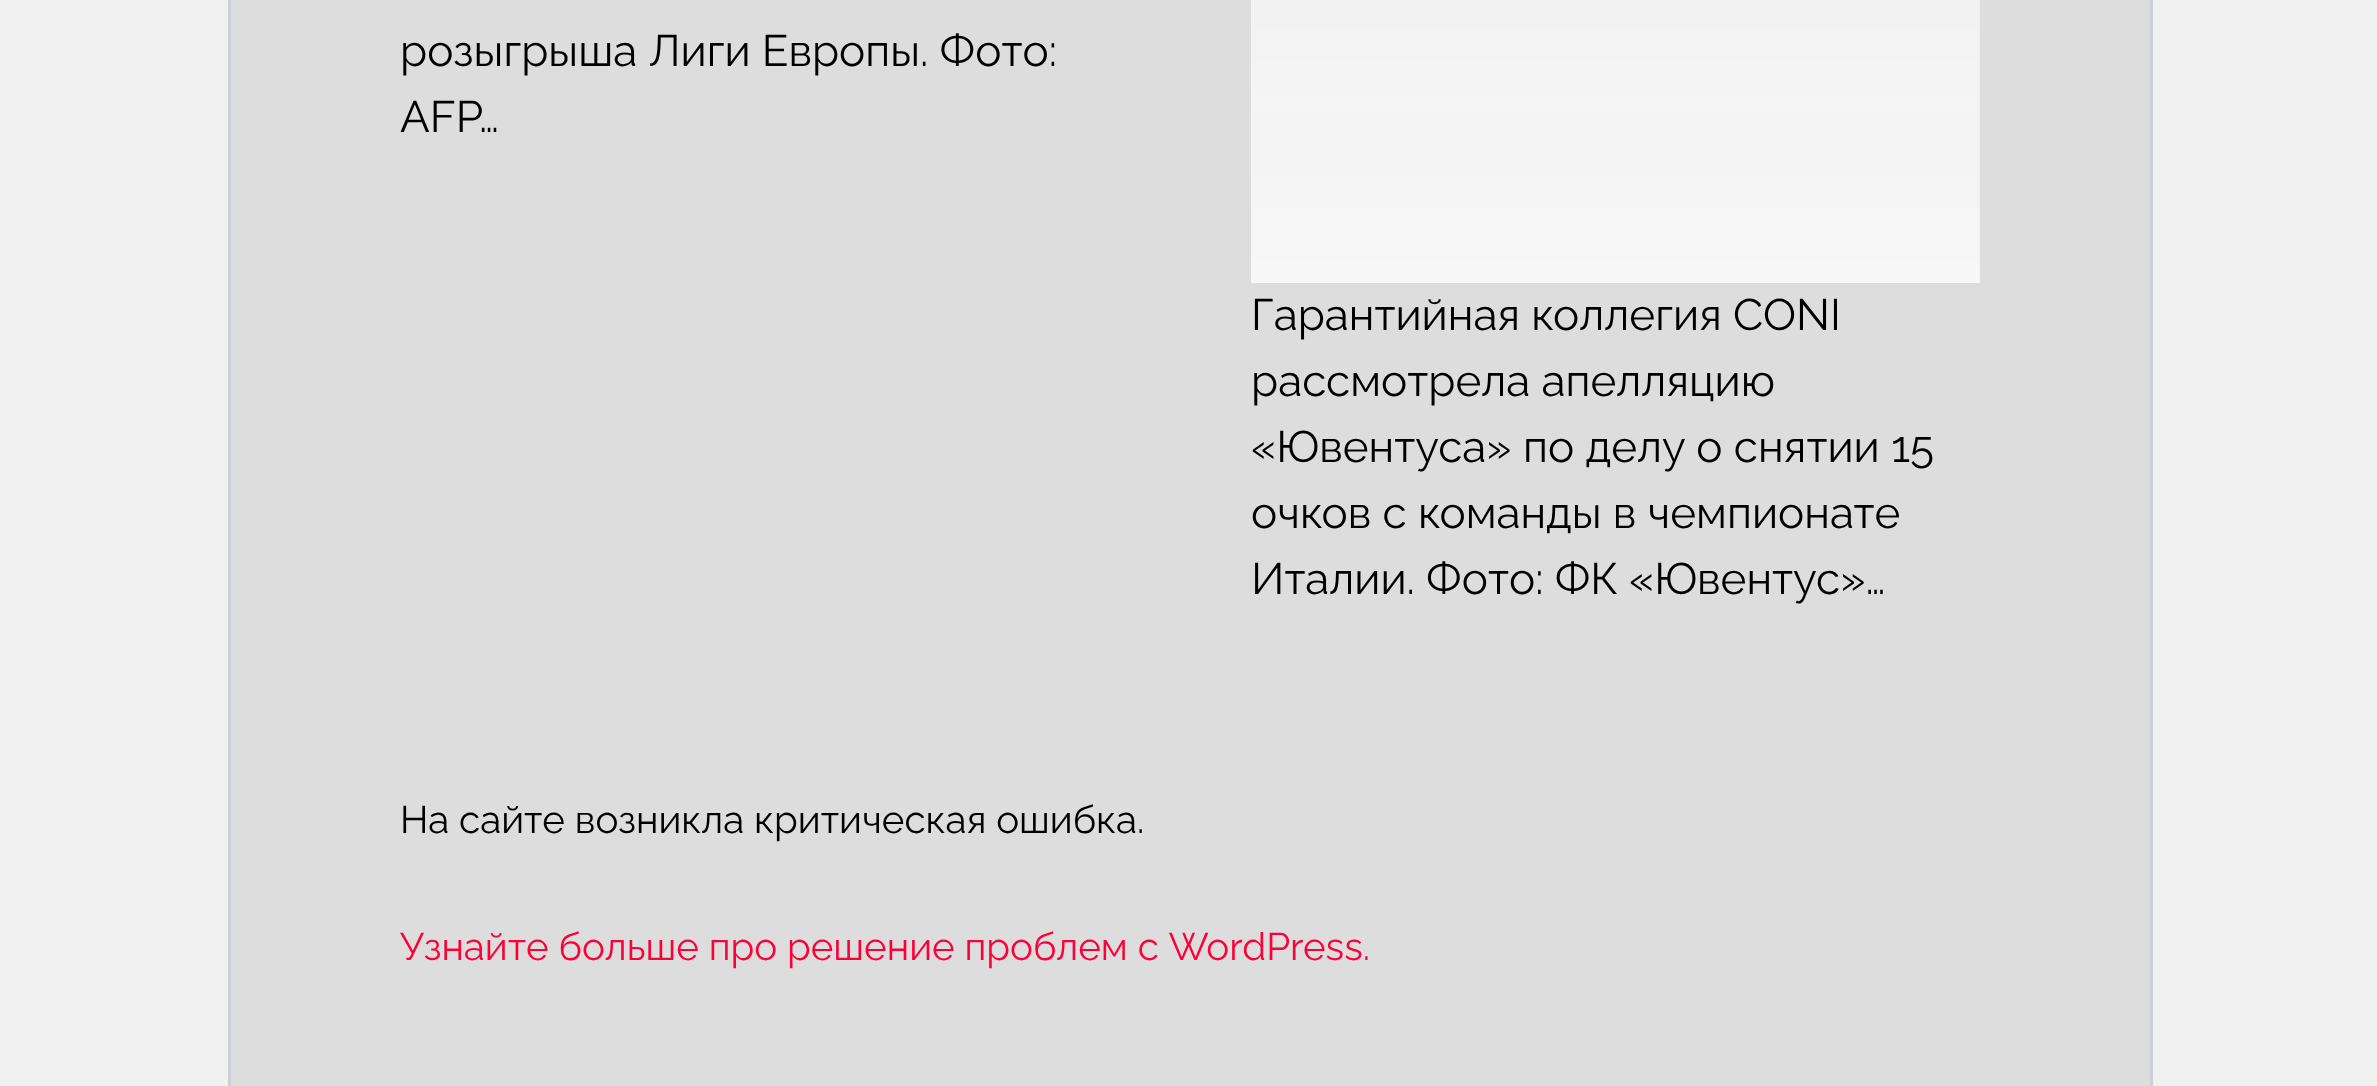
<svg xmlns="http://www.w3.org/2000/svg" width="2377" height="1086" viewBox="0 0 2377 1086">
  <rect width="100%" height="100%" fill="#f1f1f1"/>
  <rect x="229.5" y="-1.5" width="1922" height="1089" fill="#dddddd" stroke="#ccd0d4" stroke-width="3"/>
  <text x="400" y="66" font-family="Raleway" font-size="44" fill="#000000">розыгрыша Лиги Европы. Фото:</text>
  <text x="400" y="132" font-family="Raleway" font-size="44" fill="#000000">AFP…</text>
  <image x="1251" y="0" width="729" height="283" href="img1.png"/>
  <text x="1251" y="330" font-family="Raleway" font-size="44" fill="#000000">Гарантийная коллегия CONI</text>
  <text x="1251" y="396" font-family="Raleway" font-size="44" fill="#000000">рассмотрела апелляцию</text>
  <text x="1251" y="462" word-spacing="0.25" font-family="Raleway" font-size="44" fill="#000000">«Ювентуса» по делу о снятии 15</text>
  <text x="1251" y="528" font-family="Raleway" font-size="44" fill="#000000">очков с команды в чемпионате</text>
  <text x="1251" y="594" font-family="Raleway" font-size="44" fill="#000000">Италии. Фото: ФК «Ювентус»…</text>
  <text x="400" y="833" font-family="Raleway" font-size="38.5" fill="#000000">На сайте возникла критическая ошибка.</text>
  <text x="400" y="960" font-family="Raleway" font-size="38.5" fill="#ff0036">Узнайте больше про решение проблем с WordPress.</text>
</svg>
